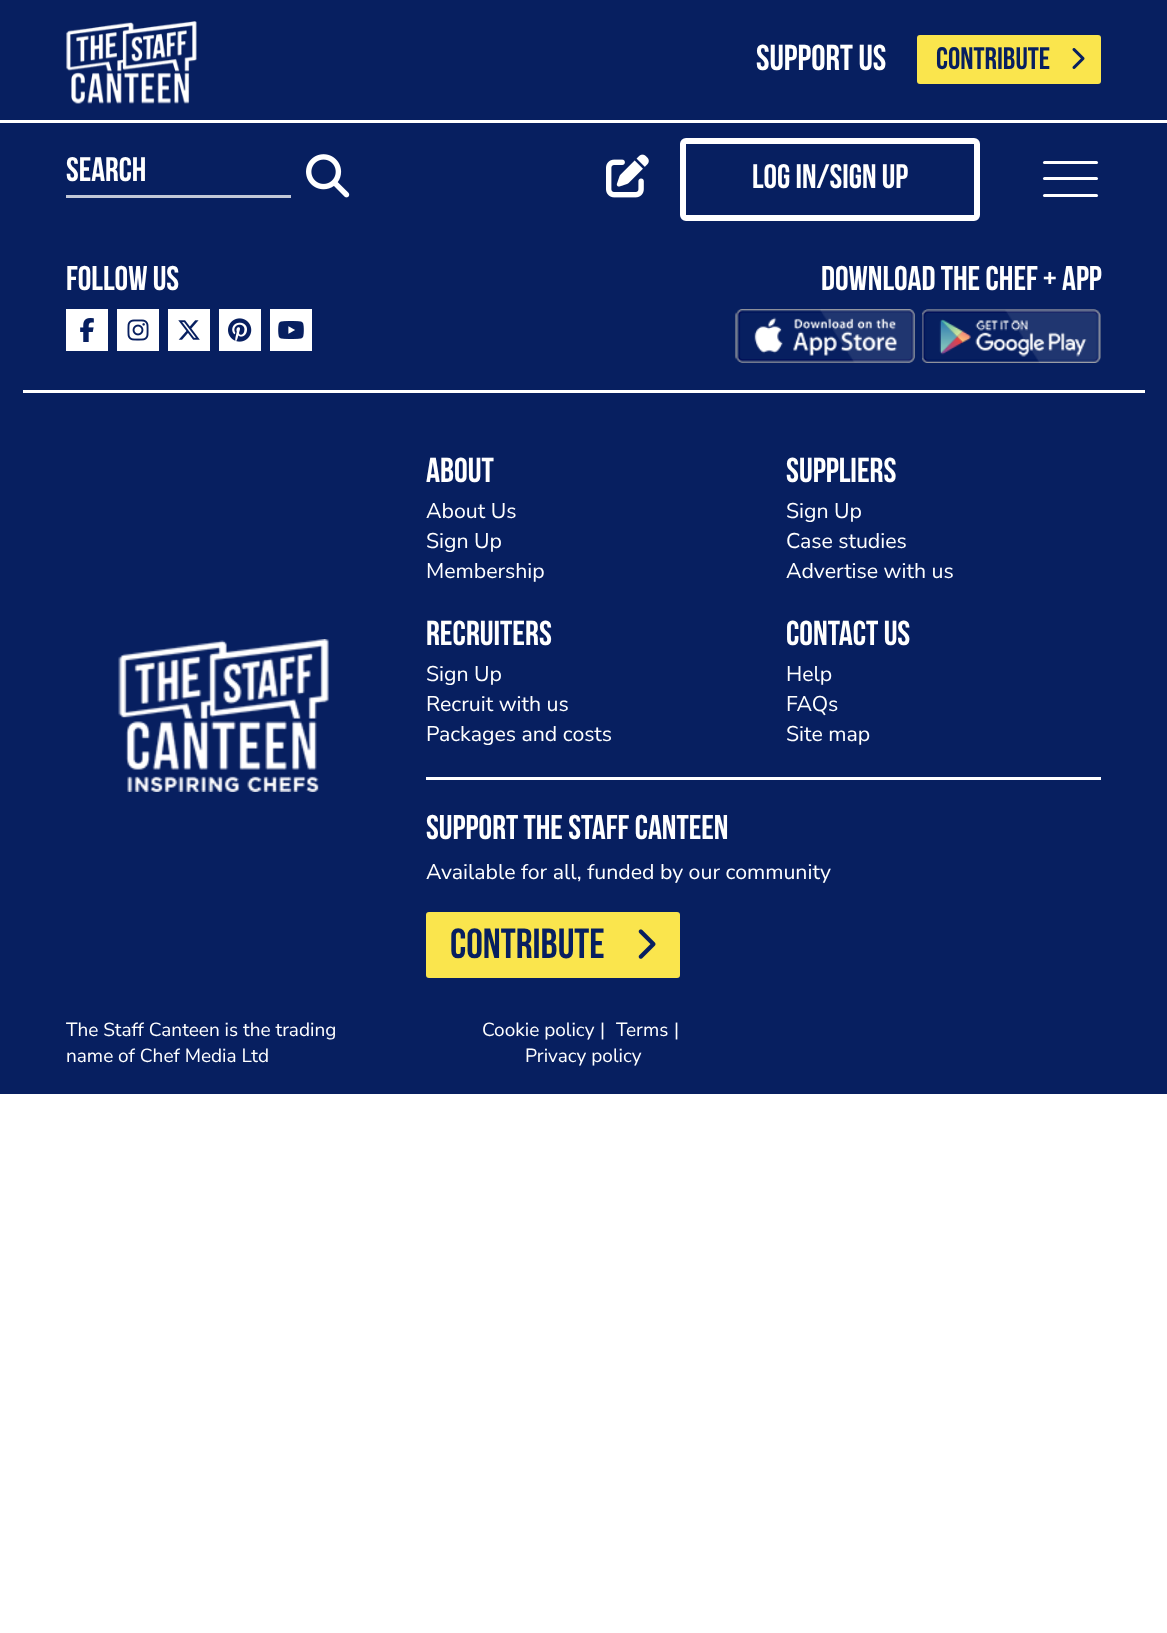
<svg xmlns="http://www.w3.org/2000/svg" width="1167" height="1633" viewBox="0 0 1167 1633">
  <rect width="100%" height="100%" fill="#ffffff"/>
  <rect x="0" y="0" width="1167" height="1094" fill="#071f60"/>
  <image x="66" y="21" width="131" height="83" href="img1.png"/>
  <text x="756" y="70" font-family="Bebas Neue" font-size="36" font-weight="bold" fill="#ffffff">SUPPORT US</text>
  <rect x="917" y="35" width="184" height="49" rx="3" fill="#fae54d"/>
  <text x="936" y="69" font-family="Bebas Neue" font-size="31" font-weight="bold" fill="#071f60">CONTRIBUTE</text>
  <image x="1072" y="48" width="13" height="21" href="img2.png"/>
  <rect x="0" y="120" width="1167" height="3" fill="#ffffff"/>
  <rect x="66" y="195" width="225" height="3" fill="#c1c7d7"/>
  <text x="66" y="181" font-family="Bebas Neue" font-size="34" font-weight="bold" fill="#ffffff">search</text>
  <image x="306" y="154" width="44" height="44" href="img3.png"/>
  <image x="606" y="154" width="43" height="44" href="img4.png"/>
  <rect x="683" y="141" width="294" height="77" rx="3" fill="none" stroke="#ffffff" stroke-width="6"/>
  <text x="752" y="188" font-family="Bebas Neue" font-size="34" font-weight="bold" fill="#ffffff">Log in/Sign up</text>
  <rect x="1043" y="161" width="55" height="3" rx="1.5" fill="#ffffff"/>
  <rect x="1043" y="177" width="55" height="3" rx="1.5" fill="#ffffff"/>
  <rect x="1043" y="194" width="55" height="3" rx="1.5" fill="#ffffff"/>
  <text x="66" y="290" font-family="Bebas Neue" font-size="34.25" font-weight="bold" fill="#ffffff">Follow Us</text>
  <rect x="66" y="309" width="42" height="42" fill="#ffffff"/>
  <image x="80" y="318" width="14" height="24" href="img5.png"/>
  <rect x="117" y="309" width="42" height="42" fill="#ffffff"/>
  <image x="127" y="319" width="22" height="22" href="img6.png"/>
  <rect x="168" y="309" width="42" height="42" fill="#ffffff"/>
  <image x="178" y="320" width="22" height="20" href="img7.png"/>
  <rect x="219" y="309" width="42" height="42" fill="#ffffff"/>
  <image x="228" y="318" width="24" height="24" href="img8.png"/>
  <rect x="270" y="309" width="42" height="42" fill="#ffffff"/>
  <image x="278" y="321" width="26" height="18" href="img9.png"/>
  <text x="821" y="290" font-family="Bebas Neue" font-size="34.25" font-weight="bold" fill="#ffffff">Download the Chef + app</text>
  <image x="735" y="309" width="180" height="54" href="img10.png"/>
  <image x="922" y="309" width="179" height="54" href="img11.png"/>
  <rect x="23" y="390" width="1122" height="3" fill="#ffffff"/>
  <image x="118" y="639" width="211" height="153" href="img12.png"/>
  <text x="426" y="482" font-family="Bebas Neue" font-size="34.5" font-weight="bold" fill="#ffffff">About</text>
  <text x="426" y="518" font-family="Nunito Sans" font-size="21.3" font-weight="200" fill="#ffffff">About Us</text>
  <text x="426" y="548" font-family="Nunito Sans" font-size="21.3" font-weight="200" fill="#ffffff">Sign Up</text>
  <text x="426" y="578" font-family="Nunito Sans" font-size="21.3" font-weight="200" fill="#ffffff">Membership</text>
  <text x="786" y="482" font-family="Bebas Neue" font-size="34.5" font-weight="bold" fill="#ffffff">Suppliers</text>
  <text x="786" y="518" font-family="Nunito Sans" font-size="21.3" font-weight="200" fill="#ffffff">Sign Up</text>
  <text x="786" y="548" font-family="Nunito Sans" font-size="21.3" font-weight="200" fill="#ffffff">Case studies</text>
  <text x="786" y="578" font-family="Nunito Sans" font-size="21.3" font-weight="200" fill="#ffffff">Advertise with us</text>
  <text x="426" y="645" font-family="Bebas Neue" font-size="34.5" font-weight="bold" fill="#ffffff">Recruiters</text>
  <text x="426" y="681" font-family="Nunito Sans" font-size="21.3" font-weight="200" fill="#ffffff">Sign Up</text>
  <text x="426" y="711" font-family="Nunito Sans" font-size="21.3" font-weight="200" fill="#ffffff">Recruit with us</text>
  <text x="426" y="741" font-family="Nunito Sans" font-size="21.3" font-weight="200" fill="#ffffff">Packages and costs</text>
  <text x="786" y="645" font-family="Bebas Neue" font-size="34.5" font-weight="bold" fill="#ffffff">Contact Us</text>
  <text x="786" y="681" font-family="Nunito Sans" font-size="21.3" font-weight="200" fill="#ffffff">Help</text>
  <text x="786" y="711" font-family="Nunito Sans" font-size="21.3" font-weight="200" fill="#ffffff">FAQs</text>
  <text x="786" y="741" font-family="Nunito Sans" font-size="21.3" font-weight="200" fill="#ffffff">Site map</text>
  <rect x="426" y="777" width="675" height="3" fill="#ffffff"/>
  <text x="426" y="839" font-family="Bebas Neue" font-size="34.25" font-weight="bold" fill="#ffffff">SUPPORT THE STAFF CANTEEN</text>
  <text x="426" y="879" font-family="Nunito Sans" font-size="21.3" font-weight="200" fill="#ffffff">Available for all, funded by our community</text>
  <rect x="426" y="912" width="254" height="66" rx="3" fill="#fae54d"/>
  <text x="450" y="958" font-family="Bebas Neue" font-size="42" font-weight="bold" fill="#071f60">CONTRIBUTE</text>
  <image x="638" y="929" width="18" height="30" href="img13.png"/>
  <text x="66" y="1036" font-family="Nunito Sans" font-size="19" font-weight="200" fill="#ffffff">The Staff Canteen is the trading</text>
  <text x="66" y="1062" font-family="Nunito Sans" font-size="19" font-weight="200" fill="#ffffff">name of Chef Media Ltd</text>
  <text x="482" y="1036" font-family="Nunito Sans" font-size="19" font-weight="200" fill="#ffffff">Cookie policy</text>
  <text x="600" y="1036" font-family="Nunito Sans" font-size="19" font-weight="200" fill="#ffffff">|</text>
  <text x="616" y="1036" font-family="Nunito Sans" font-size="19" font-weight="200" fill="#ffffff">Terms</text>
  <text x="674" y="1036" font-family="Nunito Sans" font-size="19" font-weight="200" fill="#ffffff">|</text>
  <text x="525" y="1062" font-family="Nunito Sans" font-size="19" font-weight="200" fill="#ffffff">Privacy policy</text>
</svg>
